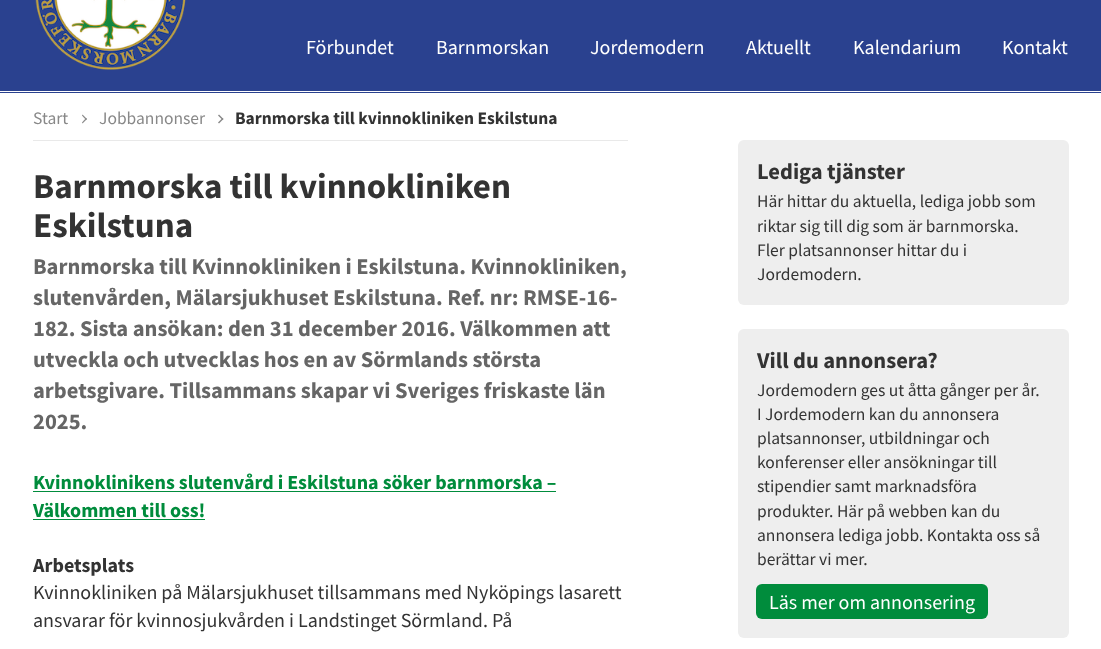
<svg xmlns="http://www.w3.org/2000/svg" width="1101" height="649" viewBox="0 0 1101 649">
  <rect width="100%" height="100%" fill="#ffffff"/>
  <rect x="0" y="0" width="1101" height="93" fill="#2a418f"/>
  <rect x="0" y="91" width="1101" height="1" fill="#ffffff"/>
  <image x="35" y="0" width="151" height="70" href="img1.png"/>
  <text x="306" y="54" font-family="Source Sans Pro" font-size="20" fill="#ffffff">Förbundet</text>
  <text x="436" y="54" font-family="Source Sans Pro" font-size="20" fill="#ffffff">Barnmorskan</text>
  <text x="590" y="54" font-family="Source Sans Pro" font-size="20" fill="#ffffff">Jordemodern</text>
  <text x="746" y="54" font-family="Source Sans Pro" font-size="20" fill="#ffffff">Aktuellt</text>
  <text x="853" y="54" font-family="Source Sans Pro" font-size="20" fill="#ffffff">Kalendarium</text>
  <text x="1002" y="54" font-family="Source Sans Pro" font-size="20" fill="#ffffff">Kontakt</text>
  <text x="33" y="124" font-family="Source Sans Pro" font-size="17.5" fill="#888888">Start</text>
  <path d="M82 115.5L82.5 114.5L87 119L86 120Z" fill="#888888"/>
  <path d="M82 122.5L86 118L87 119L82.5 123.5Z" fill="#888888"/>
  <text x="99" y="124" font-family="Source Sans Pro" font-size="17.5" fill="#888888">Jobbannonser</text>
  <path d="M218 115.5L219 114.5L223.5 119L222.5 120Z" fill="#888888"/>
  <path d="M218 122.5L222.5 118L223.5 119L219 123.5Z" fill="#888888"/>
  <text x="235" y="124" font-family="Source Sans Pro" font-size="17.5" font-weight="bold" fill="#333333">Barnmorska till kvinnokliniken Eskilstuna</text>
  <rect x="33" y="140" width="595" height="1" fill="#e9e9e9"/>
  <text x="33" y="198" font-family="Source Sans Pro" font-size="35" font-weight="bold" fill="#333333">Barnmorska till kvinnokliniken</text>
  <text x="33" y="237" font-family="Source Sans Pro" font-size="35" font-weight="bold" fill="#333333">Eskilstuna</text>
  <text x="33" y="274" font-family="Source Sans Pro" font-size="22.5" font-weight="bold" fill="#666666">Barnmorska till Kvinnokliniken i Eskilstuna. Kvinnokliniken,</text>
  <text x="33" y="305" font-family="Source Sans Pro" font-size="22.5" font-weight="bold" fill="#666666">slutenvården, Mälarsjukhuset Eskilstuna. Ref. nr: RMSE-16-</text>
  <text x="33" y="336" font-family="Source Sans Pro" font-size="22.5" font-weight="bold" fill="#666666">182. Sista ansökan: den 31 december 2016. Välkommen att</text>
  <text x="33" y="367" font-family="Source Sans Pro" font-size="22.5" font-weight="bold" fill="#666666">utveckla och utvecklas hos en av Sörmlands största</text>
  <text x="33" y="398" font-family="Source Sans Pro" font-size="22.5" font-weight="bold" fill="#666666">arbetsgivare. Tillsammans skapar vi Sveriges friskaste län</text>
  <text x="33" y="429" font-family="Source Sans Pro" font-size="22.5" font-weight="bold" fill="#666666">2025.</text>
  <text x="33" y="489" font-family="Source Sans Pro" font-size="20" font-weight="bold" fill="#008c3c">Kvinnoklinikens slutenvård i Eskilstuna söker barnmorska –</text>
  <rect x="33" y="491" width="523" height="1" fill="#008c3c"/>
  <text x="33" y="517" font-family="Source Sans Pro" font-size="20" font-weight="bold" fill="#008c3c">Välkommen till oss!</text>
  <rect x="33" y="519" width="172" height="1" fill="#008c3c"/>
  <text x="33" y="572" font-family="Source Sans Pro" font-size="20" font-weight="bold" fill="#333333">Arbetsplats</text>
  <text x="33" y="599" font-family="Source Sans Pro" font-size="20" fill="#333333">Kvinnokliniken på Mälarsjukhuset tillsammans med Nyköpings lasarett</text>
  <text x="33" y="627" font-family="Source Sans Pro" font-size="20" fill="#333333">ansvarar för kvinnosjukvården i Landstinget Sörmland. På</text>
  <rect x="738" y="140" width="331" height="165" rx="6" fill="#eeeeee"/>
  <text x="757" y="179" font-family="Source Sans Pro" font-size="22.5" font-weight="bold" fill="#333333">Lediga tjänster</text>
  <text x="757" y="207" font-family="Source Sans Pro" font-size="17.5" fill="#333333">Här hittar du aktuella, lediga jobb som</text>
  <text x="757" y="232" font-family="Source Sans Pro" font-size="17.5" fill="#333333">riktar sig till dig som är barnmorska.</text>
  <text x="757" y="256" font-family="Source Sans Pro" font-size="17.5" fill="#333333">Fler platsannonser hittar du i</text>
  <text x="757" y="280" font-family="Source Sans Pro" font-size="17.5" fill="#333333">Jordemodern.</text>
  <rect x="738" y="329" width="331" height="309" rx="6" fill="#eeeeee"/>
  <text x="757" y="368" font-family="Source Sans Pro" font-size="22.5" font-weight="bold" fill="#333333">Vill du annonsera?</text>
  <text x="757" y="396" font-family="Source Sans Pro" font-size="17.5" fill="#333333">Jordemodern ges ut åtta gånger per år.</text>
  <text x="757" y="420" font-family="Source Sans Pro" font-size="17.5" fill="#333333">I Jordemodern kan du annonsera</text>
  <text x="757" y="444" font-family="Source Sans Pro" font-size="17.5" fill="#333333">platsannonser, utbildningar och</text>
  <text x="757" y="468" font-family="Source Sans Pro" font-size="17.5" fill="#333333">konferenser eller ansökningar till</text>
  <text x="757" y="492" font-family="Source Sans Pro" font-size="17.5" fill="#333333">stipendier samt marknadsföra</text>
  <text x="757" y="517" font-family="Source Sans Pro" font-size="17.5" fill="#333333">produkter. Här på webben kan du</text>
  <text x="757" y="541" font-family="Source Sans Pro" font-size="17.5" fill="#333333">annonsera lediga jobb. Kontakta oss så</text>
  <text x="757" y="565" font-family="Source Sans Pro" font-size="17.5" fill="#333333">berättar vi mer.</text>
  <rect x="756" y="584" width="232" height="35" rx="6" fill="#008c3c"/>
  <text x="769" y="609" font-family="Source Sans Pro" font-size="20" fill="#ffffff">Läs mer om annonsering</text>
</svg>
